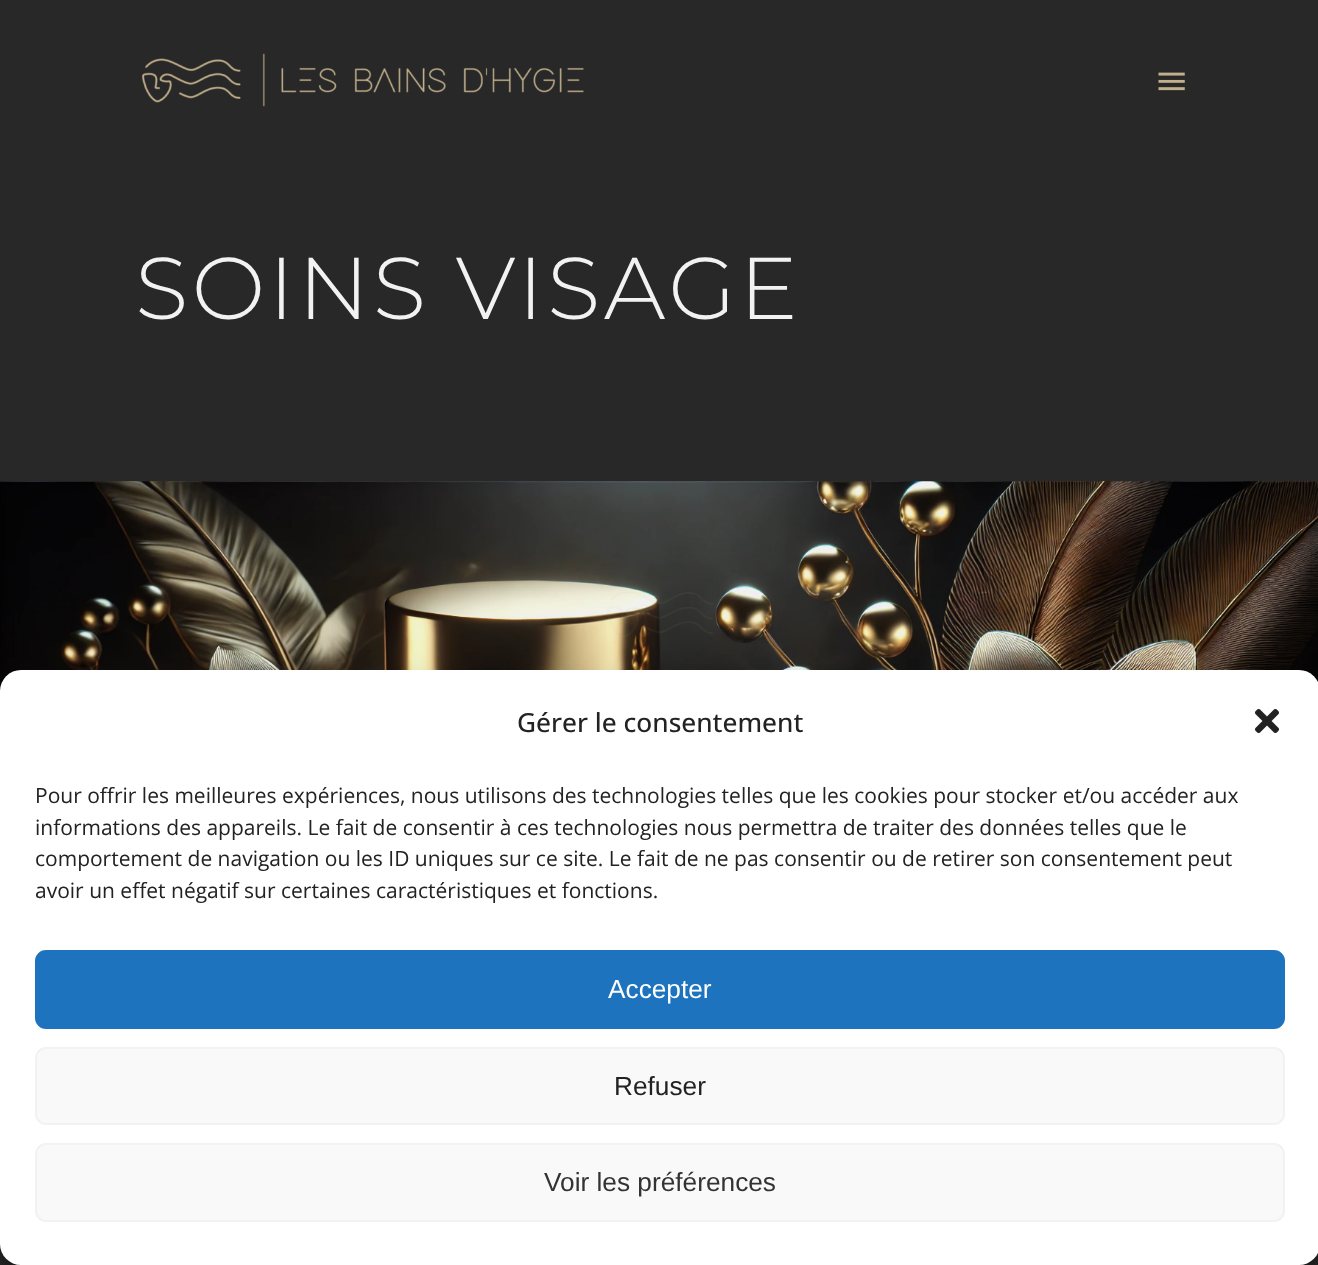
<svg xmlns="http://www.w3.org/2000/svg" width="1318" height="1265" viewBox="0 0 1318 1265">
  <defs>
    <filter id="blur1" x="-50%" y="-200%" width="200%" height="500%"><feGaussianBlur stdDeviation="5"/></filter>
    <filter id="blur2" x="-50%" y="-200%" width="200%" height="500%"><feGaussianBlur stdDeviation="17.5"/></filter>
  </defs>
  <rect width="100%" height="100%" fill="#282828"/>
  <image x="141" y="53" width="443" height="54" href="img1.png"/>
  <image x="1158" y="72" width="27" height="19" href="img2.png"/>
  <text x="135" y="319" font-family="Montserrat" font-size="87.5" font-weight="300" letter-spacing="3.5" fill="#f2f2f2">SOINS VISAGE</text>
  <image x="0" y="481" width="1318" height="210" href="img3.png"/>
  <image x="607" y="592" width="106" height="45" href="img4.png"/>
  <rect x="0" y="681" width="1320" height="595" rx="21" fill="#000000" fill-opacity="0.23" filter="url(#blur1)"/>
  <rect x="0" y="688" width="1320" height="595" rx="21" fill="#000000" fill-opacity="0.19" filter="url(#blur2)"/>
  <rect x="0" y="670" width="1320" height="595" rx="21" fill="#ffffff"/>
  <text x="517" y="732" font-family="Open Sans" font-size="26.25" font-weight="500" fill="#222222">Gérer le consentement</text>
  <image x="1255" y="709" width="24" height="24" href="img5.png"/>
  <text x="35" y="803" font-family="Open Sans" font-size="21" fill="#222222">Pour offrir les meilleures expériences, nous utilisons des technologies telles que les cookies pour stocker et/ou accéder aux</text>
  <text x="35" y="835" font-family="Open Sans" font-size="21" fill="#222222">informations des appareils. Le fait de consentir à ces technologies nous permettra de traiter des données telles que le</text>
  <text x="35" y="866" font-family="Open Sans" font-size="21" fill="#222222">comportement de navigation ou les ID uniques sur ce site. Le fait de ne pas consentir ou de retirer son consentement peut</text>
  <text x="35" y="898" font-family="Open Sans" font-size="21" fill="#222222">avoir un effet négatif sur certaines caractéristiques et fonctions.</text>
  <rect x="36" y="951" width="1248" height="77" rx="10" fill="#1e73be" stroke="#1e73be" stroke-width="2"/>
  <text x="608" y="998" font-family="Liberation Sans" font-size="26.25" fill="#ffffff">Accepter</text>
  <rect x="36" y="1048" width="1248" height="76" rx="10" fill="#f9f9f9" stroke="#f2f2f2" stroke-width="2"/>
  <text x="614" y="1095" font-family="Liberation Sans" font-size="26.25" fill="#222222">Refuser</text>
  <rect x="36" y="1144" width="1248" height="77" rx="10" fill="#f9f9f9" stroke="#f2f2f2" stroke-width="2"/>
  <text x="544" y="1191" font-family="Liberation Sans" font-size="26.25" fill="#333333">Voir les préférences</text>
</svg>
